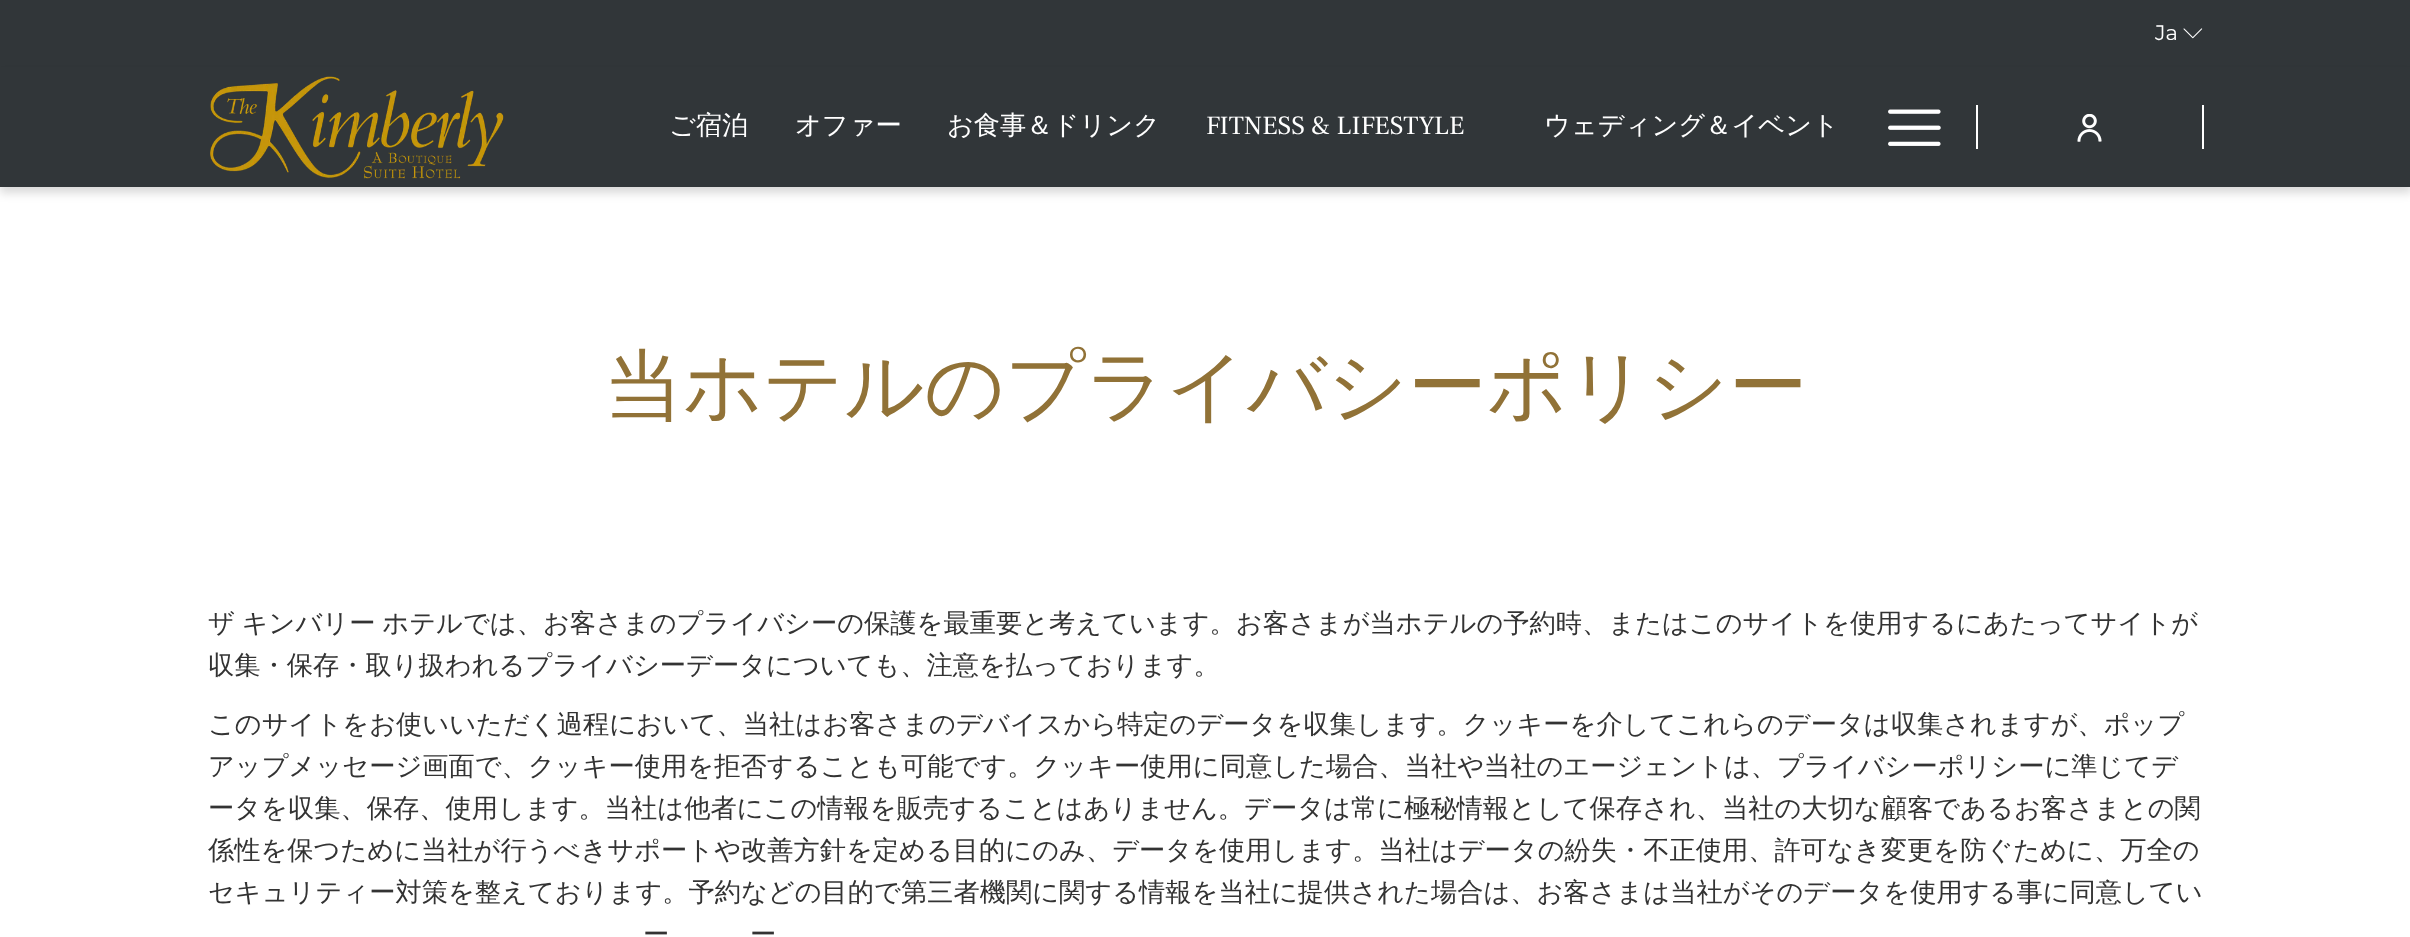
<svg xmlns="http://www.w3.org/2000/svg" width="2410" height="937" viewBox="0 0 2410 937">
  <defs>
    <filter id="blur1" x="-50%" y="-200%" width="200%" height="500%"><feGaussianBlur stdDeviation="5"/></filter>
  </defs>
  <rect width="100%" height="100%" fill="#ffffff"/>
  <rect x="0" y="0" width="2410" height="67" fill="#313639"/>
  <text x="2155" y="40" font-family="Montserrat" font-size="21" fill="#ffffff">Ja</text>
  <image x="2183" y="28" width="20" height="11" href="img1.png"/>
  <rect x="0" y="72" width="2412" height="121" fill="#000000" fill-opacity="0.15" filter="url(#blur1)"/>
  <rect x="0" y="67" width="2410" height="120" fill="#313639"/>
  <image x="210" y="76" width="294" height="103" href="img2.png"/>
  <text x="669" y="134" font-family="WenQuanYi Zen Hei" font-size="26.25" font-weight="500" fill="#ffffff">ご宿泊</text>
  <text x="795" y="134" font-family="WenQuanYi Zen Hei" font-size="26.25" font-weight="500" fill="#ffffff">オファー</text>
  <text x="947" y="134" font-family="WenQuanYi Zen Hei" font-size="26.25" font-weight="500" fill="#ffffff">お食事＆ドリンク</text>
  <text x="1206" y="134" font-family="Frank Ruhl Libre" font-size="26.25" fill="#ffffff">FITNESS &amp; LIFESTYLE</text>
  <text x="1544" y="134" font-family="WenQuanYi Zen Hei" font-size="26.25" font-weight="500" fill="#ffffff">ウェディング＆イベント</text>
  <image x="1888" y="109" width="53" height="37" href="img3.png"/>
  <rect x="2202" y="105" width="2" height="44" fill="#ffffff"/>
  <rect x="1976" y="105" width="2" height="44" fill="#ffffff"/>
  <image x="2077" y="114" width="25" height="28" href="img4.png"/>
  <text x="604" y="413" font-family="WenQuanYi Zen Hei" font-size="78.75" font-weight="500" fill="#917237">当ホテルのプライバシーポリシー</text>
  <text x="208" y="632" word-spacing="-1" font-family="WenQuanYi Zen Hei" font-size="26.25" font-weight="500" fill="#333333">ザ キンバリー ホテルでは、お客さまのプライバシーの保護を最重要と考えています。お客さまが当ホテルの予約時、またはこのサイトを使用するにあたってサイトが</text>
  <text x="208" y="674" font-family="WenQuanYi Zen Hei" font-size="26.25" font-weight="500" fill="#333333">収集・保存・取り扱われるプライバシーデータについても、注意を払っております。</text>
  <text x="208" y="733" font-family="WenQuanYi Zen Hei" font-size="26.25" font-weight="500" fill="#333333">このサイトをお使いいただく過程において、当社はお客さまのデバイスから特定のデータを収集します。クッキーを介してこれらのデータは収集されますが、ポップ</text>
  <text x="208" y="775" font-family="WenQuanYi Zen Hei" font-size="26.25" font-weight="500" fill="#333333">アップメッセージ画面で、クッキー使用を拒否することも可能です。クッキー使用に同意した場合、当社や当社のエージェントは、プライバシーポリシーに準じてデ</text>
  <text x="208" y="817" font-family="WenQuanYi Zen Hei" font-size="26.25" font-weight="500" fill="#333333">ータを収集、保存、使用します。当社は他者にこの情報を販売することはありません。データは常に極秘情報として保存され、当社の大切な顧客であるお客さまとの関</text>
  <text x="208" y="859" font-family="WenQuanYi Zen Hei" font-size="26.25" font-weight="500" fill="#333333">係性を保つために当社が行うべきサポートや改善方針を定める目的にのみ、データを使用します。当社はデータの紛失・不正使用、許可なき変更を防ぐために、万全の</text>
  <text x="208" y="901" font-family="WenQuanYi Zen Hei" font-size="26.25" font-weight="500" fill="#333333">セキュリティー対策を整えております。予約などの目的で第三者機関に関する情報を当社に提供された場合は、お客さまは当社がそのデータを使用する事に同意してい</text>
  <text x="643" y="943" word-spacing="-1" font-family="WenQuanYi Zen Hei" font-size="26.25" font-weight="500" fill="#333333">ー</text>
  <text x="750" y="943" word-spacing="-1" font-family="WenQuanYi Zen Hei" font-size="26.25" font-weight="500" fill="#333333">ー</text>
</svg>
